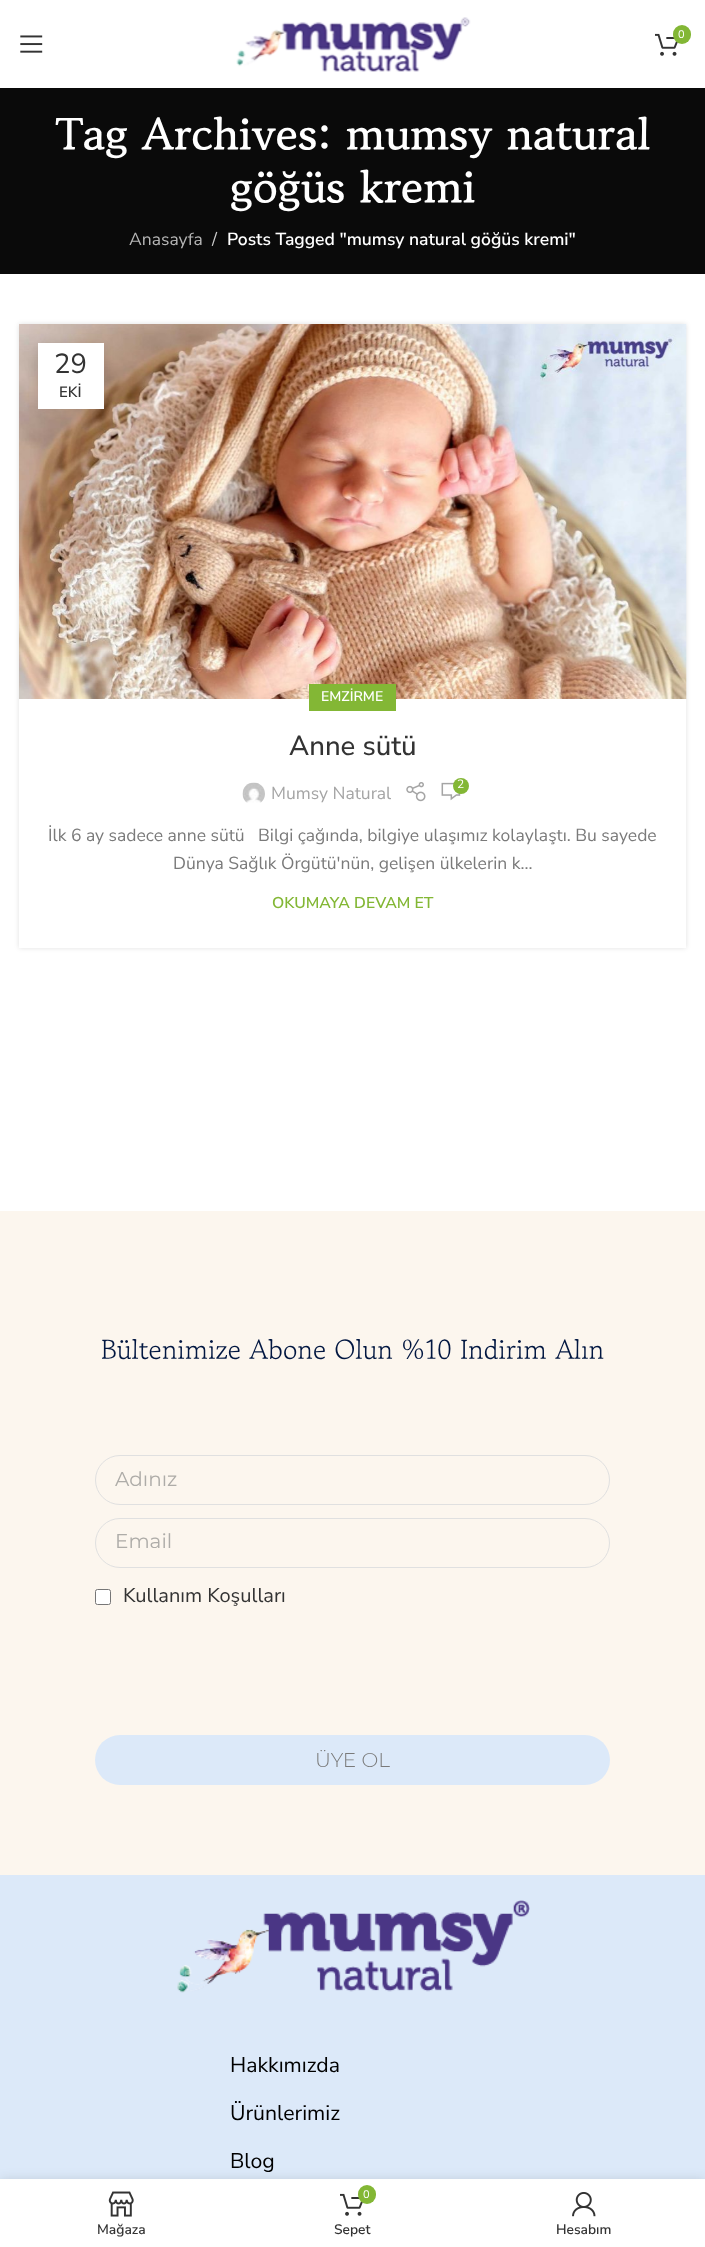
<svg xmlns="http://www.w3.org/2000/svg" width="705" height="2247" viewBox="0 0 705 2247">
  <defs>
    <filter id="blur1" x="-50%" y="-200%" width="200%" height="500%"><feGaussianBlur stdDeviation="5"/></filter>
    <filter id="blur2" x="-50%" y="-200%" width="200%" height="500%"><feGaussianBlur stdDeviation="2.5"/></filter>
    <filter id="blur3" x="-50%" y="-200%" width="200%" height="500%"><feGaussianBlur stdDeviation="5.5"/></filter>
  </defs>
  <rect width="100%" height="100%" fill="#ffffff"/>
  <rect x="0" y="88" width="705" height="186" fill="#0a0a0a"/>
  <rect x="0" y="1" width="705" height="88" fill="#000000" fill-opacity="0.1" filter="url(#blur1)"/>
  <rect x="0" y="0" width="705" height="88" fill="#ffffff"/>
  <image x="20" y="35" width="23" height="18" href="img1.png"/>
  <image x="236" y="17" width="235" height="55" href="img2.png"/>
  <image x="655" y="33" width="23" height="23" href="img3.png"/>
  <rect x="673" y="25" width="18" height="19" rx="9" fill="#83b735"/>
  <text x="678" y="38" font-family="Nunito Sans" font-size="11" fill="#ffffff">0</text>
  <text x="55" y="153" font-family="Gowun Batang" font-size="45" font-weight="bold" fill="#ffffff">Tag Archives: mumsy natural</text>
  <text x="230" y="206" font-family="Gowun Batang" font-size="45" font-weight="bold" fill="#ffffff">göğüs kremi</text>
  <text x="129" y="245" font-family="Nunito Sans" font-size="17.5" fill="#b6b6b6">Anasayfa</text>
  <text x="212" y="245" font-family="Nunito Sans" font-size="17.5" fill="#cecece">/</text>
  <text x="227" y="245" font-family="Nunito Sans" font-size="17.5" font-weight="600" fill="#ffffff">Posts Tagged "mumsy natural göğüs kremi"</text>
  <rect x="19" y="324" width="667" height="624" fill="#000000" fill-opacity="0.12" filter="url(#blur2)"/>
  <image x="19" y="324" width="668" height="375" href="img4.png"/>
  <rect x="38" y="343" width="66" height="66" fill="#000000" fill-opacity="0.1" filter="url(#blur3)"/>
  <rect x="38" y="343" width="66" height="66" fill="#ffffff"/>
  <text x="54" y="373" font-family="Nunito Sans" font-size="27.5" fill="#333333">29</text>
  <text x="59" y="397" font-family="Nunito Sans" font-size="15" font-weight="600" fill="#333333">EKİ</text>
  <rect x="19" y="699" width="667" height="249" fill="#ffffff"/>
  <rect x="309" y="684" width="87" height="27" fill="#83b735"/>
  <text x="321" y="701" font-family="Nunito Sans" font-size="14" font-weight="600" fill="#ffffff">EMZİRME</text>
  <text x="289" y="755" font-family="Nunito Sans" font-size="27.5" font-weight="500" fill="#333333">Anne sütü</text>
  <image x="242" y="782" width="23" height="21" href="img5.png"/>
  <text x="271" y="799" font-family="Nunito Sans" font-size="17.5" fill="#a5a5a5">Mumsy Natural</text>
  <image x="406" y="782" width="20" height="20" href="img6.png"/>
  <image x="441" y="782" width="20" height="19" href="img7.png"/>
  <circle cx="461" cy="786" r="8" fill="#83b735"/>
  <text x="457" y="788" font-family="Nunito Sans" font-size="12" fill="#ffffff">2</text>
  <text x="48" y="841" font-family="Nunito Sans" font-size="17.5" fill="#7a7a7a">İlk 6 ay sadece anne sütü</text>
  <text x="258" y="841" font-family="Nunito Sans" font-size="17.5" fill="#7a7a7a">Bilgi çağında, bilgiye ulaşımız kolaylaştı. Bu sayede</text>
  <text x="173" y="869" font-family="Nunito Sans" font-size="17.5" fill="#7a7a7a">Dünya Sağlık Örgütü'nün, gelişen ülkelerin k...</text>
  <text x="272" y="908" font-family="Nunito Sans" font-size="15.75" font-weight="600" fill="#83b735">OKUMAYA DEVAM ET</text>
  <rect x="0" y="1211" width="705" height="664" fill="#fcf6ee"/>
  <text x="101" y="1361" font-family="Gowun Batang" font-size="27.5" fill="#011640">Bültenimize Abone Olun %10 Indirim Alın</text>
  <rect x="95.5" y="1455.5" width="514" height="49" rx="24.5" fill="none" stroke="#e0e0e0"/>
  <text x="115" y="1486" font-family="Montserrat" font-size="20" fill="#aeaca8">Adınız</text>
  <rect x="95.5" y="1518.5" width="514" height="49" rx="24.5" fill="none" stroke="#e0e0e0"/>
  <text x="115" y="1548" font-family="Montserrat" font-size="20" fill="#aeaca8">Email</text>
  <rect x="95.5" y="1589.5" width="15" height="15" rx="2" fill="#ffffff" stroke="#767676"/>
  <text x="123" y="1602" font-family="Nunito Sans" font-size="20" fill="#333333">Kullanım Koşulları</text>
  <rect x="95" y="1735" width="515" height="50" rx="25" fill="#dce9f9"/>
  <text x="315" y="1767" font-family="Montserrat" font-size="20" font-weight="300" fill="#7a7a7a">ÜYE OL</text>
  <rect x="0" y="1875" width="705" height="304" fill="#dce9f9"/>
  <image x="177" y="1900" width="353" height="93" href="img8.png"/>
  <text x="230" y="2072" font-family="Nunito Sans" font-size="21.25" fill="#000000">Hakkımızda</text>
  <text x="230" y="2120" font-family="Nunito Sans" font-size="21.25" fill="#000000">Ürünlerimiz</text>
  <text x="230" y="2168" font-family="Nunito Sans" font-size="21.25" fill="#000000">Blog</text>
  <rect x="0" y="2179" width="705" height="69" fill="#000000" fill-opacity="0.12" filter="url(#blur3)"/>
  <rect x="0" y="2179" width="705" height="68" fill="#ffffff"/>
  <image x="108" y="2191" width="26" height="26" href="img9.png"/>
  <text x="97" y="2234" font-family="Nunito Sans" font-size="13.75" font-weight="600" fill="#333333">Mağaza</text>
  <image x="340" y="2193" width="23" height="23" href="img3.png"/>
  <rect x="358" y="2185" width="18" height="19" rx="9" fill="#83b735"/>
  <text x="363" y="2198" font-family="Nunito Sans" font-size="11" fill="#ffffff">0</text>
  <text x="334" y="2234" font-family="Nunito Sans" font-size="13.75" font-weight="600" fill="#333333">Sepet</text>
  <image x="572" y="2192" width="24" height="25" href="img10.png"/>
  <text x="556" y="2234" font-family="Nunito Sans" font-size="13.75" font-weight="600" fill="#333333">Hesabım</text>
</svg>
